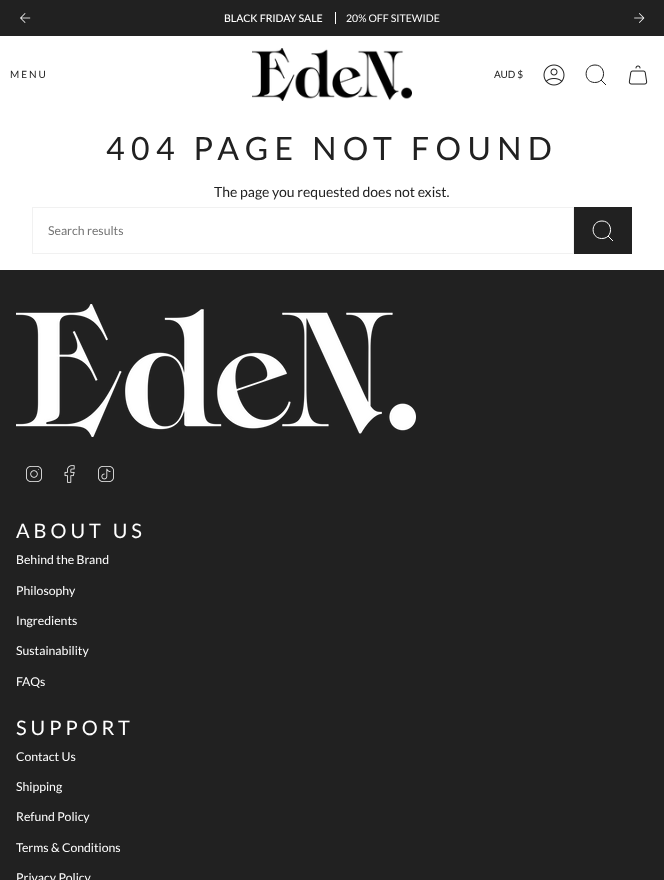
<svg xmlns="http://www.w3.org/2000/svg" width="664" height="880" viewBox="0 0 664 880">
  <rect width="100%" height="100%" fill="#ffffff"/>
  <rect x="0" y="0" width="664" height="36" fill="#212121"/>
  <image x="20" y="13" width="11" height="10" href="img1.png"/>
  <text x="224" y="22" font-family="Lato" font-size="10.5" font-weight="500" fill="#ffffff">BLACK FRIDAY SALE</text>
  <rect x="335" y="12" width="1" height="12" fill="#ffffff"/>
  <text x="346" y="22" font-family="Lato" font-size="10.5" fill="#ffffff">20% OFF SITEWIDE</text>
  <image x="634" y="13" width="11" height="10" href="img2.png"/>
  <text x="10" y="78" font-family="Lato" font-size="10" letter-spacing="2" fill="#212121">MENU</text>
  <image x="252" y="48" width="160" height="53" href="img3.png"/>
  <text x="494" y="78" font-family="Lato" font-size="10" fill="#212121">AUD $</text>
  <image x="543" y="64" width="22" height="22" href="img4.png"/>
  <path d="M595 65C606.5 65 606.5 83 594.5 82.5C583 82 583.5 65 595 65ZM601 80L606 85" fill="none" stroke="#212121"/>
  <image x="628" y="65" width="20" height="20" href="img5.png"/>
  <text x="106" y="160" font-family="Lato" font-size="32" letter-spacing="6.4" fill="#212121">404 PAGE NOT FOUND</text>
  <text x="214" y="197" font-family="Lato" font-size="14" fill="#212121">The page you requested does not exist.</text>
  <rect x="32.5" y="207.5" width="541" height="46" fill="none" stroke="#f1f1f1"/>
  <text x="48" y="235" font-family="Lato" font-size="12.25" fill="#757575">Search results</text>
  <rect x="574" y="207" width="58" height="47" fill="#212121"/>
  <path d="M602 221C613.5 221 613.5 239 601.5 238.5C590 238 590.5 221 602 221ZM608 236L613 241" fill="none" stroke="#ffffff"/>
  <rect x="0" y="270" width="664" height="610" fill="#212121"/>
  <image x="16" y="304" width="400" height="133" href="img6.png"/>
  <image x="26" y="466" width="16" height="16" href="img7.png"/>
  <image x="64" y="465" width="11" height="18" href="img8.png"/>
  <image x="98" y="466" width="16" height="16" href="img9.png"/>
  <text x="16" y="538" font-family="Lato" font-size="20" letter-spacing="4" fill="#ffffff">ABOUT US</text>
  <text x="16" y="564" font-family="Lato" font-size="12.25" fill="#ffffff">Behind the Brand</text>
  <text x="16" y="595" font-family="Lato" font-size="12.25" fill="#ffffff">Philosophy</text>
  <text x="16" y="625" font-family="Lato" font-size="12.25" fill="#ffffff">Ingredients</text>
  <text x="16" y="655" font-family="Lato" font-size="12.25" fill="#ffffff">Sustainability</text>
  <text x="16" y="686" font-family="Lato" font-size="12.25" fill="#ffffff">FAQs</text>
  <text x="16" y="735" font-family="Lato" font-size="20" letter-spacing="4" fill="#ffffff">SUPPORT</text>
  <text x="16" y="761" font-family="Lato" font-size="12.25" fill="#ffffff">Contact Us</text>
  <text x="16" y="791" font-family="Lato" font-size="12.25" fill="#ffffff">Shipping</text>
  <text x="16" y="821" font-family="Lato" font-size="12.25" fill="#ffffff">Refund Policy</text>
  <text x="16" y="852" font-family="Lato" font-size="12.25" fill="#ffffff">Terms &amp; Conditions</text>
  <text x="16" y="882" font-family="Lato" font-size="12.25" fill="#ffffff">Privacy Policy</text>
</svg>
